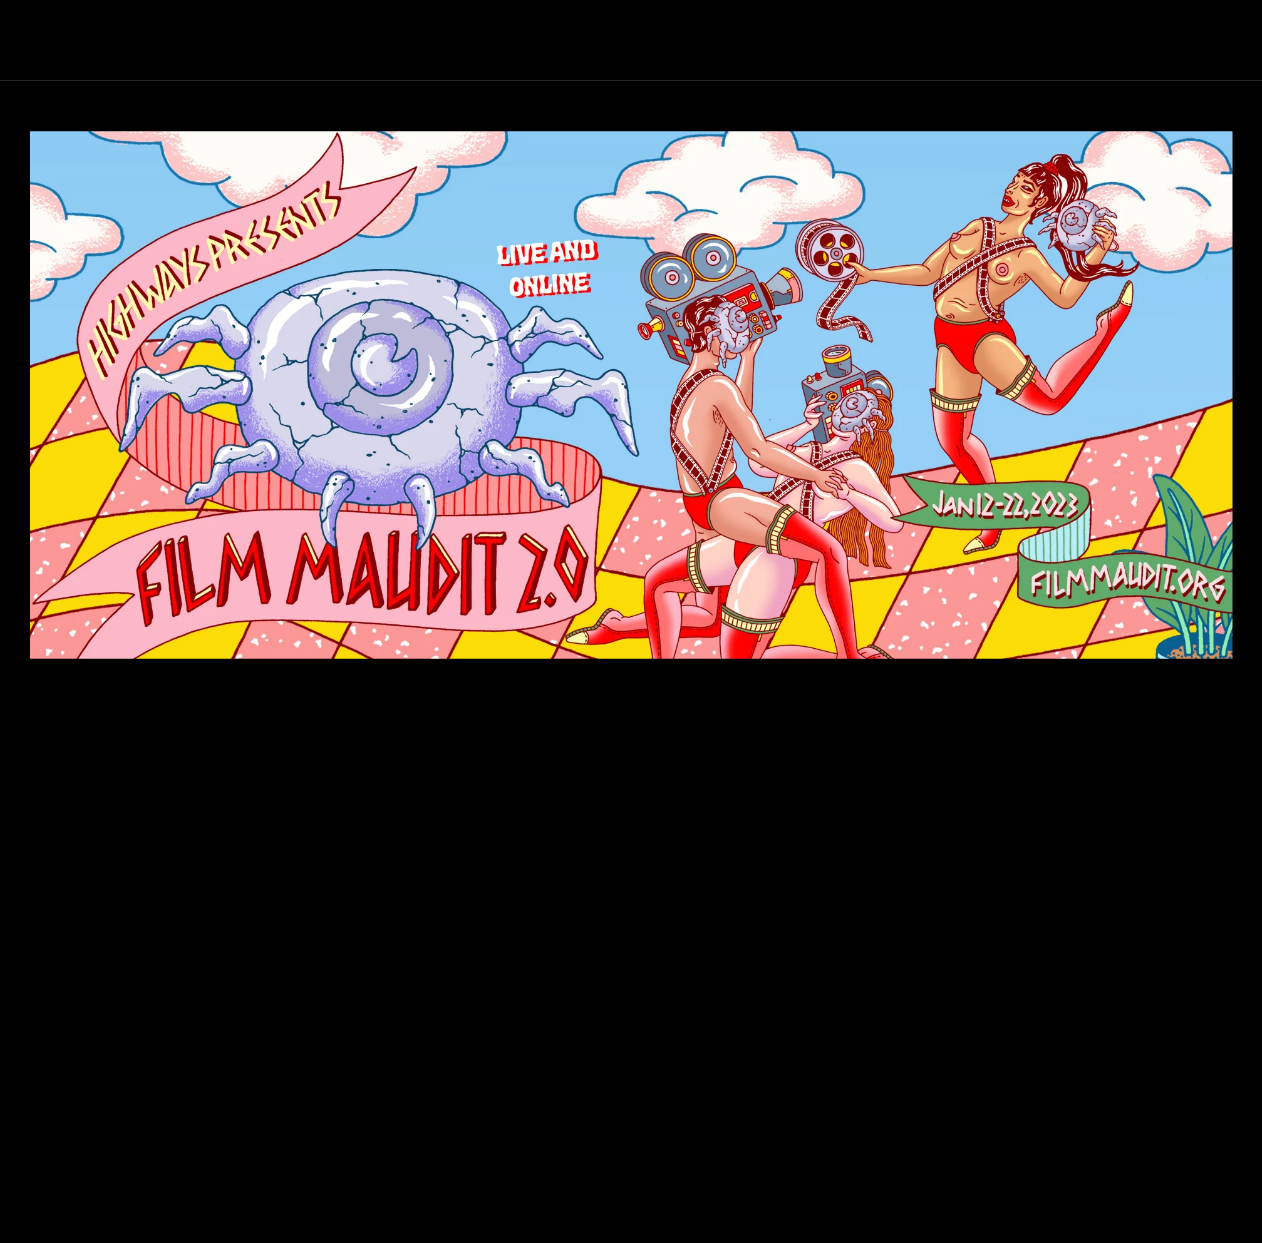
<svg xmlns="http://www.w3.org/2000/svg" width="1262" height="1243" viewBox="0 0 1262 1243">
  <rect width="100%" height="100%" fill="#000000"/>
  <rect x="0" y="80" width="1262" height="1" fill="#252525"/>
  <image x="30" y="131" width="1203" height="528" href="img1.png"/>
</svg>
